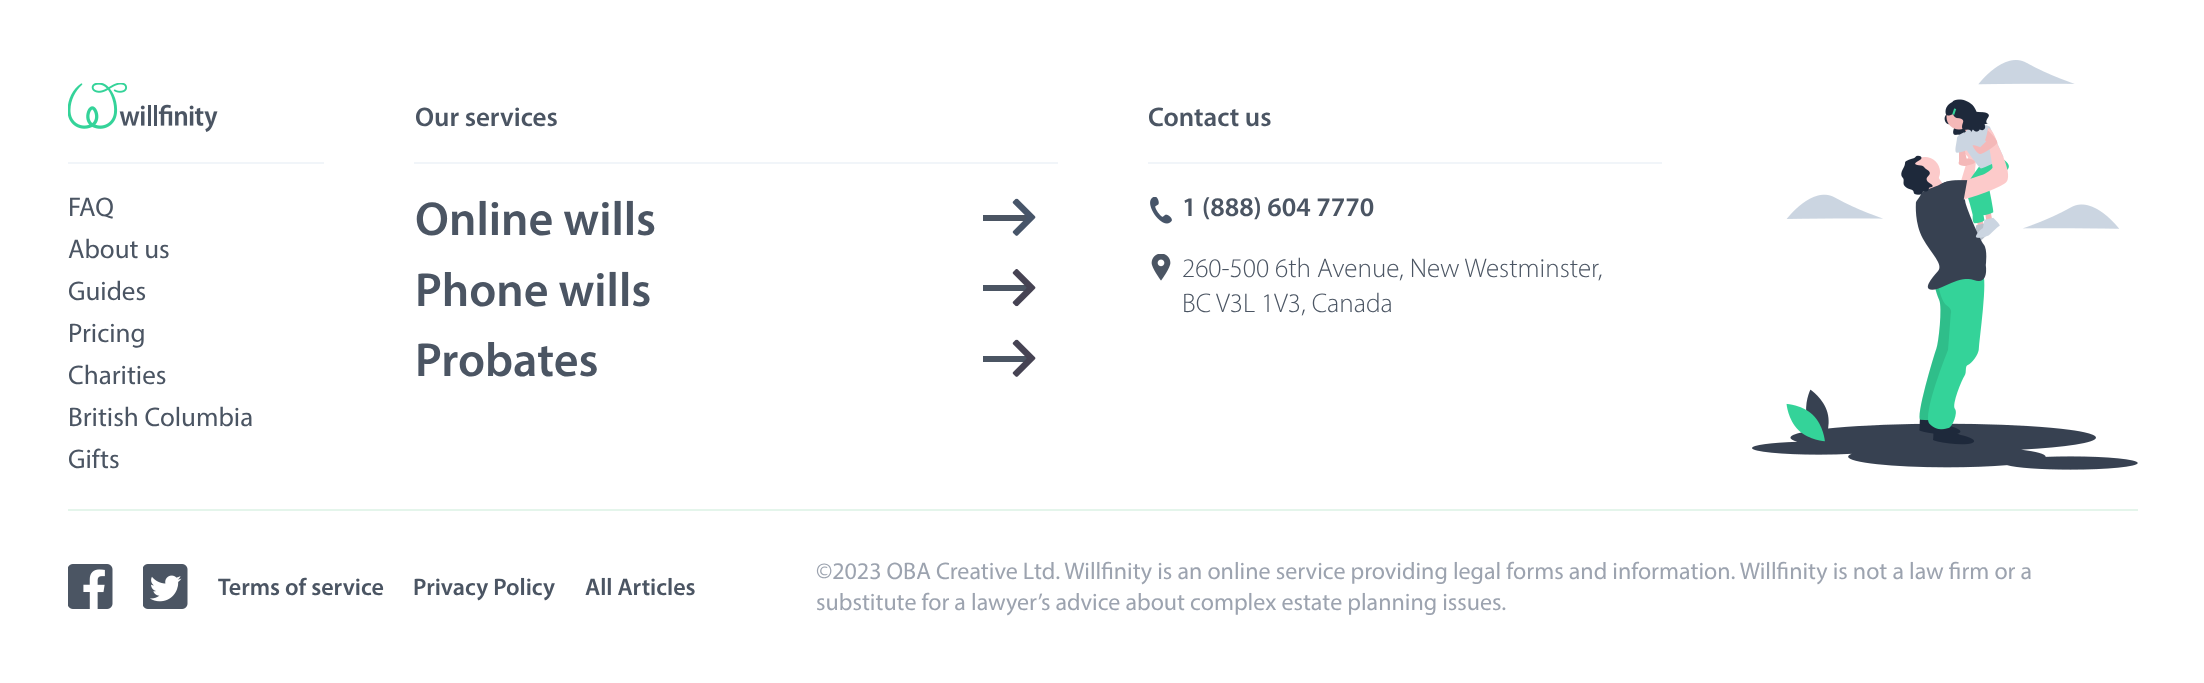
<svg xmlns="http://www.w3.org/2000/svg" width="2204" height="683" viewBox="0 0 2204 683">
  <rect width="100%" height="100%" fill="#ffffff"/>
  <rect x="68" y="509" width="2070" height="2" fill="#e4f5eb"/>
  <image x="68" y="83" width="150" height="49" href="img1.png"/>
  <text x="415" y="126" font-family="Myriad" font-size="27" font-weight="600" fill="#4b5563">Our services</text>
  <text x="1148" y="126" font-family="Myriad" font-size="27" font-weight="600" fill="#4b5563">Contact us</text>
  <image x="1752" y="60" width="386" height="410" href="img2.png"/>
  <rect x="68" y="162" width="256" height="2" fill="#f1f5f9"/>
  <text x="68" y="216" font-family="Myriad" font-size="27" fill="#4b5563">FAQ</text>
  <text x="68" y="258" font-family="Myriad" font-size="27" fill="#4b5563">About us</text>
  <text x="68" y="300" font-family="Myriad" font-size="27" fill="#4b5563">Guides</text>
  <text x="68" y="342" font-family="Myriad" font-size="27" fill="#4b5563">Pricing</text>
  <text x="68" y="384" font-family="Myriad" font-size="27" fill="#4b5563">Charities</text>
  <text x="68" y="426" font-family="Myriad" font-size="27" fill="#4b5563">British Columbia</text>
  <text x="68" y="468" font-family="Myriad" font-size="27" fill="#4b5563">Gifts</text>
  <rect x="414" y="162" width="644" height="2" fill="#f1f5f9"/>
  <text x="415" y="235" font-family="Myriad" font-size="48" font-weight="600" fill="#4b5563">Online wills</text>
  <rect x="983" y="215" width="45" height="6" fill="#4b5563"/>
  <image x="1012" y="198" width="24" height="38" href="img3.png"/>
  <text x="415" y="306" font-family="Myriad" font-size="48" font-weight="600" fill="#4b5563">Phone wills</text>
  <rect x="983" y="285" width="45" height="6" fill="#4b5563"/>
  <image x="1012" y="269" width="24" height="38" href="img4.png"/>
  <text x="415" y="376" font-family="Myriad" font-size="48" font-weight="600" fill="#4b5563">Probates</text>
  <rect x="983" y="356" width="45" height="6" fill="#4b5563"/>
  <image x="1012" y="339" width="24" height="38" href="img5.png"/>
  <rect x="1148" y="162" width="514" height="2" fill="#f1f5f9"/>
  <image x="1150" y="197" width="22" height="27" href="img6.png"/>
  <text x="1182" y="216" font-family="Myriad" font-size="27" font-weight="600" fill="#4b5563">1 (888) 604 7770</text>
  <image x="1151" y="254" width="20" height="27" href="img7.png"/>
  <text x="1182" y="277" font-family="Myriad" font-size="27" font-weight="300" fill="#4b5563">260-500 6th Avenue, New Westminster,</text>
  <text x="1182" y="312" font-family="Myriad" font-size="27" font-weight="300" fill="#4b5563">BC V3L 1V3, Canada</text>
  <image x="68" y="564" width="45" height="45" href="img8.png"/>
  <image x="143" y="564" width="45" height="45" href="img9.png"/>
  <text x="218" y="595" font-family="Myriad" font-size="24" font-weight="600" fill="#4b5563">Terms of service</text>
  <text x="413" y="595" font-family="Myriad" font-size="24" font-weight="600" fill="#4b5563">Privacy Policy</text>
  <text x="585" y="595" font-family="Myriad" font-size="24" font-weight="600" fill="#4b5563">All Articles</text>
  <text x="816" y="579" font-family="Myriad" font-size="24" fill="#9ca3af">©2023 OBA Creative Ltd. Willfinity is an online service providing legal forms and information. Willfinity is not a law firm or a</text>
  <text x="816" y="610" font-family="Myriad" font-size="24" fill="#9ca3af">substitute for a lawyer’s advice about complex estate planning issues.</text>
</svg>
